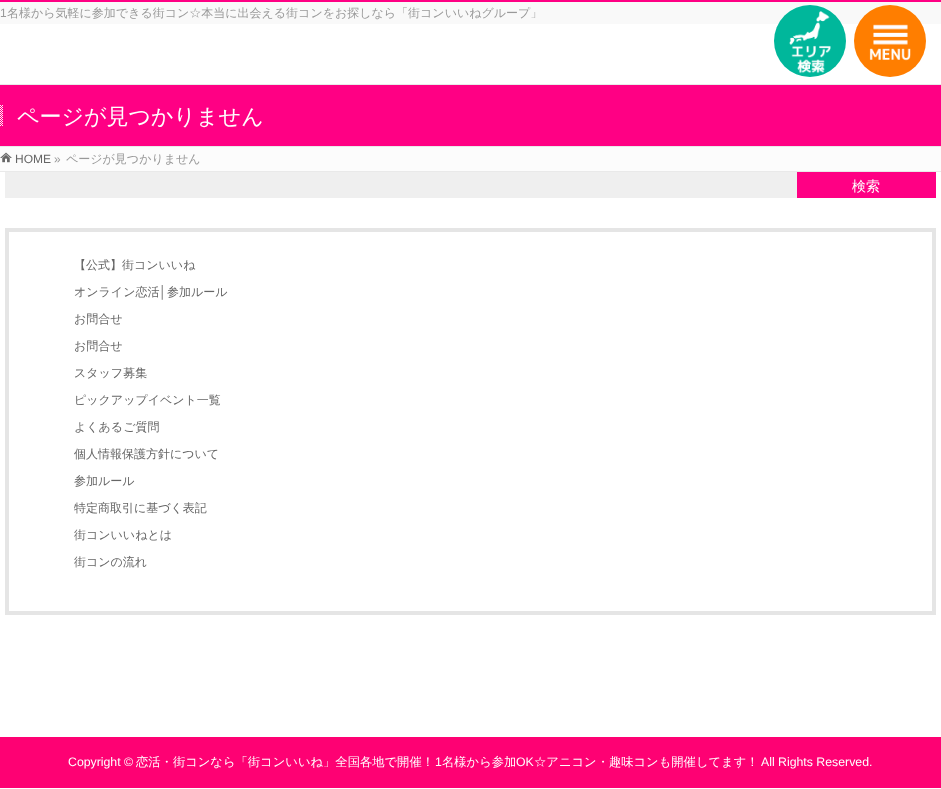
<svg xmlns="http://www.w3.org/2000/svg" width="941" height="789" viewBox="0 0 941 789">
  <rect width="100%" height="100%" fill="#ffffff"/>
  <rect x="0" y="2" width="941" height="22" fill="#f9f9f9"/>
  <rect x="0" y="0" width="941" height="2" fill="#ff0084"/>
  <text x="0" y="17" font-family="Liberation Sans" font-size="12" fill="#999999">1</text>
  <text x="7" y="17" font-family="WenQuanYi Zen Hei" font-size="12" font-weight="500" fill="#999999">名様から気軽に参加できる街コン☆本当に出会える街コンをお探しなら「街コンいいねグループ」</text>
  <circle cx="810" cy="41" r="36" fill="#00b79b"/>
  <image x="789" y="11" width="42" height="63" href="img1.png"/>
  <circle cx="890" cy="41" r="36" fill="#ff7e00"/>
  <image x="869" y="24" width="42" height="37" href="img2.png"/>
  <rect x="0" y="85" width="941" height="61" fill="#ff0084"/>
  <rect x="0" y="84" width="941" height="1" fill="#e9e9e9"/>
  <rect x="0" y="146" width="941" height="1" fill="#e9e9e9"/>
  <image x="0" y="105" width="3" height="21" href="img3.png"/>
  <text x="17" y="124" font-family="WenQuanYi Zen Hei" font-size="22" font-weight="500" fill="#ffffff">ページが見つかりません</text>
  <rect x="0" y="147" width="941" height="24" fill="#fcfcfc"/>
  <image x="0" y="152" width="12" height="11" href="img4.png"/>
  <text x="15" y="163" font-family="Liberation Sans" font-size="12" fill="#666666">HOME</text>
  <text x="54" y="163" font-family="Liberation Sans" font-size="12" fill="#999999">»</text>
  <text x="66" y="163" font-family="WenQuanYi Zen Hei" font-size="12" font-weight="500" fill="#999999">ページが見つかりません</text>
  <rect x="0" y="171" width="941" height="1" fill="#e9e9e9"/>
  <rect x="5" y="172" width="792" height="26" fill="#efefef"/>
  <rect x="797" y="172" width="139" height="26" fill="#ff0084"/>
  <text x="852" y="191" font-family="WenQuanYi Zen Hei" font-size="14" font-weight="500" fill="#ffffff">検索</text>
  <rect x="7" y="230" width="927" height="383" fill="none" stroke="#e5e5e5" stroke-width="4"/>
  <text x="74" y="269" font-family="WenQuanYi Zen Hei" font-size="12" font-weight="500" fill="#666666">【公式】街コンいいね</text>
  <text x="74" y="296" font-family="WenQuanYi Zen Hei" font-size="12" font-weight="500" fill="#666666">オンライン恋活</text>
  <text x="159" y="296" font-family="Liberation Sans" font-size="12" fill="#666666">│</text>
  <text x="167" y="296" font-family="WenQuanYi Zen Hei" font-size="12" font-weight="500" fill="#666666">参加ルール</text>
  <text x="74" y="323" font-family="WenQuanYi Zen Hei" font-size="12" font-weight="500" fill="#666666">お問合せ</text>
  <text x="74" y="350" font-family="WenQuanYi Zen Hei" font-size="12" font-weight="500" fill="#666666">お問合せ</text>
  <text x="74" y="377" font-family="WenQuanYi Zen Hei" font-size="12" font-weight="500" fill="#666666">スタッフ募集</text>
  <text x="74" y="404" font-family="WenQuanYi Zen Hei" font-size="12" font-weight="500" fill="#666666">ピックアップイベント一覧</text>
  <text x="74" y="431" font-family="WenQuanYi Zen Hei" font-size="12" font-weight="500" fill="#666666">よくあるご質問</text>
  <text x="74" y="458" font-family="WenQuanYi Zen Hei" font-size="12" font-weight="500" fill="#666666">個人情報保護方針について</text>
  <text x="74" y="485" font-family="WenQuanYi Zen Hei" font-size="12" font-weight="500" fill="#666666">参加ルール</text>
  <text x="74" y="512" font-family="WenQuanYi Zen Hei" font-size="12" font-weight="500" fill="#666666">特定商取引に基づく表記</text>
  <text x="74" y="539" font-family="WenQuanYi Zen Hei" font-size="12" font-weight="500" fill="#666666">街コンいいねとは</text>
  <text x="74" y="566" font-family="WenQuanYi Zen Hei" font-size="12" font-weight="500" fill="#666666">街コンの流れ</text>
  <rect x="0" y="737" width="941" height="51" fill="#fe0173"/>
  <text x="68" y="766" font-family="Liberation Sans" font-size="12.3" fill="#ffffff">Copyright ©</text>
  <text x="136" y="766" font-family="WenQuanYi Zen Hei" font-size="12.3" font-weight="500" fill="#ffffff">恋活・街コンなら「街コンいいね」全国各地で開催！</text>
  <text x="435" y="766" font-family="Liberation Sans" font-size="12.3" fill="#ffffff">1</text>
  <text x="442" y="766" font-family="WenQuanYi Zen Hei" font-size="12.3" font-weight="500" fill="#ffffff">名様から参加</text>
  <text x="516" y="766" font-family="Liberation Sans" font-size="12.3" fill="#ffffff">OK</text>
  <text x="534" y="766" font-family="WenQuanYi Zen Hei" font-size="12.3" font-weight="500" fill="#ffffff">☆アニコン・趣味コンも開催してます！</text>
  <text x="761" y="766" font-family="Liberation Sans" font-size="12.3" fill="#ffffff">All Rights Reserved.</text>
</svg>
